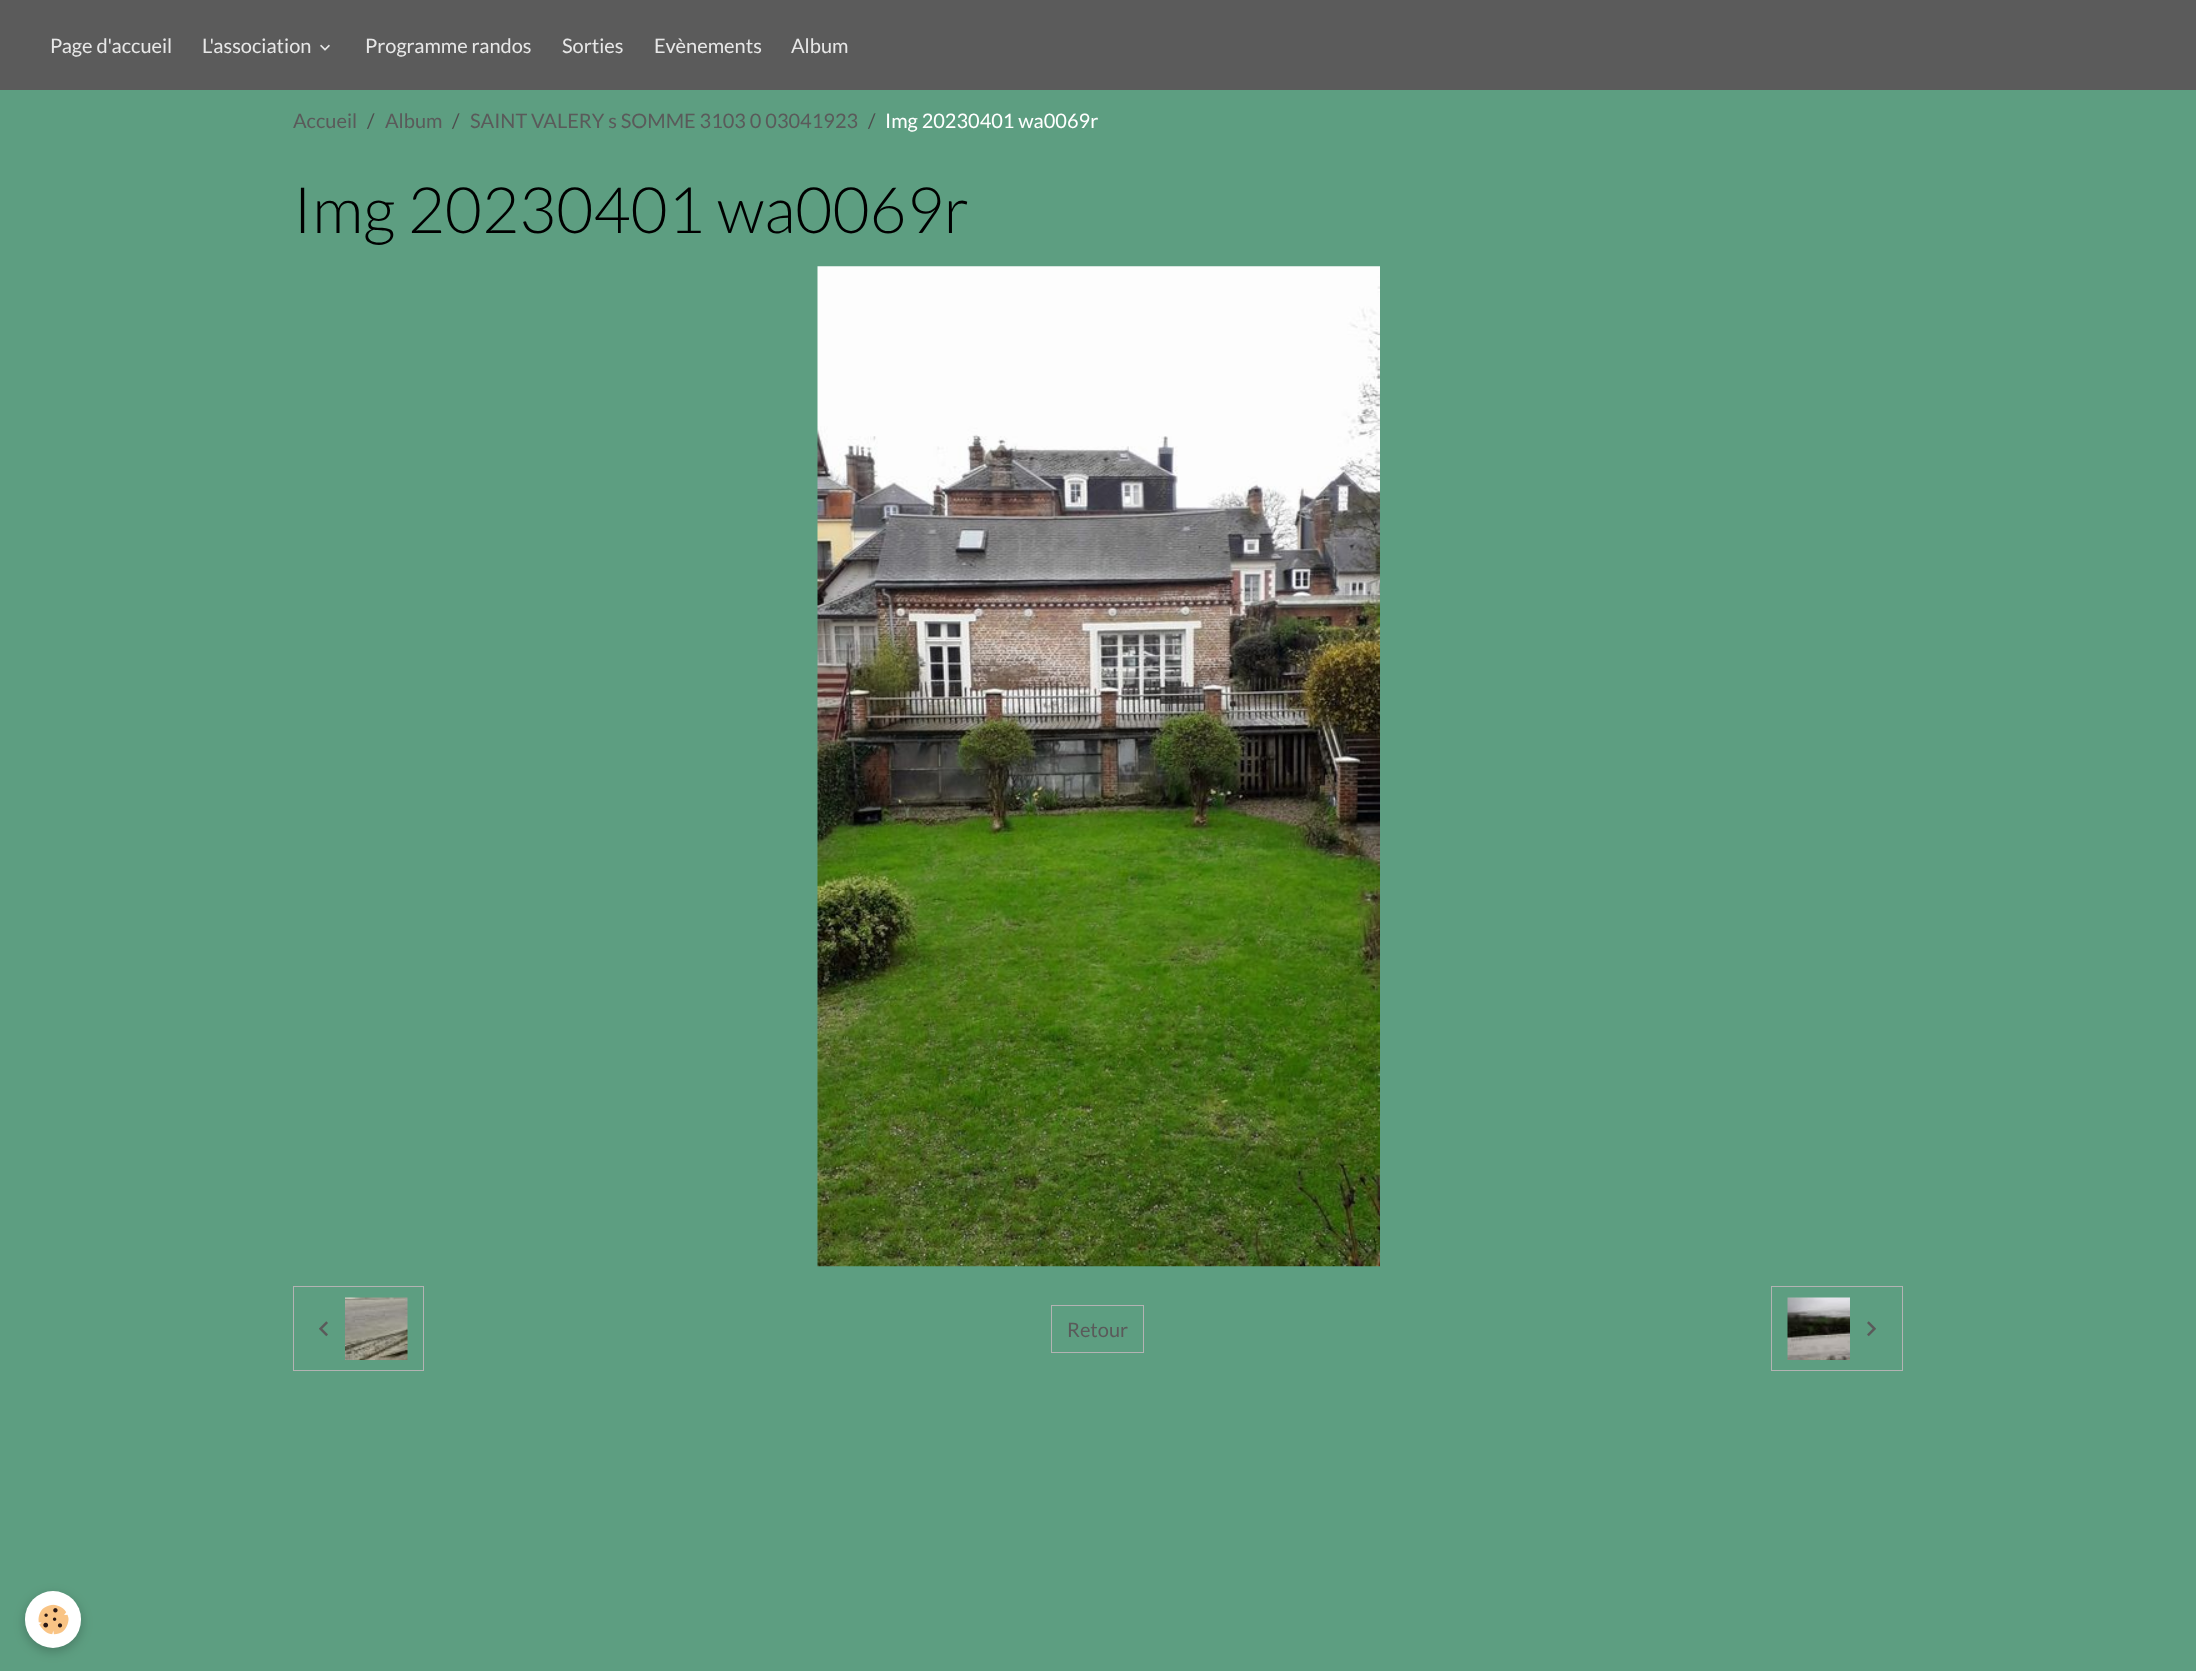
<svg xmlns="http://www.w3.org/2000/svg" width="2196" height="1671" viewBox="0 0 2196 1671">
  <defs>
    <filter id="blur1" x="-50%" y="-200%" width="200%" height="500%"><feGaussianBlur stdDeviation="6"/></filter>
  </defs>
  <rect width="100%" height="100%" fill="#5d9e81"/>
  <rect x="0" y="0" width="2196" height="90" fill="#5b5b5b"/>
  <text x="50" y="53" font-family="Lato" font-size="20" fill="#e7e7e7">Page d'accueil</text>
  <text x="202" y="53" font-family="Lato" font-size="20" fill="#e7e7e7">L'association</text>
  <image x="320" y="44" width="10" height="7" href="img1.png"/>
  <text x="365" y="53" font-family="Lato" font-size="20" fill="#e7e7e7">Programme randos</text>
  <text x="562" y="53" font-family="Lato" font-size="20" fill="#e7e7e7">Sorties</text>
  <text x="654" y="53" font-family="Lato" font-size="20" fill="#e7e7e7">Evènements</text>
  <text x="791" y="53" font-family="Lato" font-size="20" fill="#e7e7e7">Album</text>
  <text x="293" y="128" font-family="Lato" font-size="20" fill="#5a5a5a">Accueil</text>
  <text x="367" y="128" font-family="Lato" font-size="20" fill="#4d4d4d">/</text>
  <text x="385" y="128" font-family="Lato" font-size="20" fill="#5a5a5a">Album</text>
  <text x="452" y="128" font-family="Lato" font-size="20" fill="#4d4d4d">/</text>
  <text x="470" y="128" font-family="Lato" font-size="20" fill="#5a5a5a">SAINT VALERY s SOMME 3103 0 03041923</text>
  <text x="868" y="128" font-family="Lato" font-size="20" fill="#4d4d4d">/</text>
  <text x="885" y="128" font-family="Lato" font-size="20" fill="#ffffff">Img 20230401 wa0069r</text>
  <text x="293" y="233" font-family="Lato" font-size="64" font-weight="300" fill="#000000">Img 20230401 wa0069r</text>
  <image x="817" y="266" width="563" height="1001" href="img2.png"/>
  <rect x="293.5" y="1286.5" width="130" height="84" fill="none" stroke="#b3b3b3"/>
  <image x="319" y="1321" width="9" height="16" href="img3.png"/>
  <image x="345" y="1297" width="63" height="63" href="img4.png"/>
  <rect x="1051.5" y="1305.5" width="92" height="47" fill="none" stroke="#b3b3b3"/>
  <text x="1067" y="1337" font-family="Lato" font-size="20" fill="#5a5a5a">Retour</text>
  <rect x="1771.5" y="1286.5" width="131" height="84" fill="none" stroke="#b3b3b3"/>
  <image x="1787" y="1297" width="63" height="63" href="img5.png"/>
  <image x="1867" y="1321" width="9" height="16" href="img6.png"/>
  <rect x="25" y="1595" width="56" height="56" rx="28" fill="#000000" fill-opacity="0.24" filter="url(#blur1)"/>
  <rect x="25" y="1591" width="56" height="57" rx="28" fill="#ffffff"/>
  <image x="38" y="1604" width="31" height="31" href="img7.png"/>
</svg>
